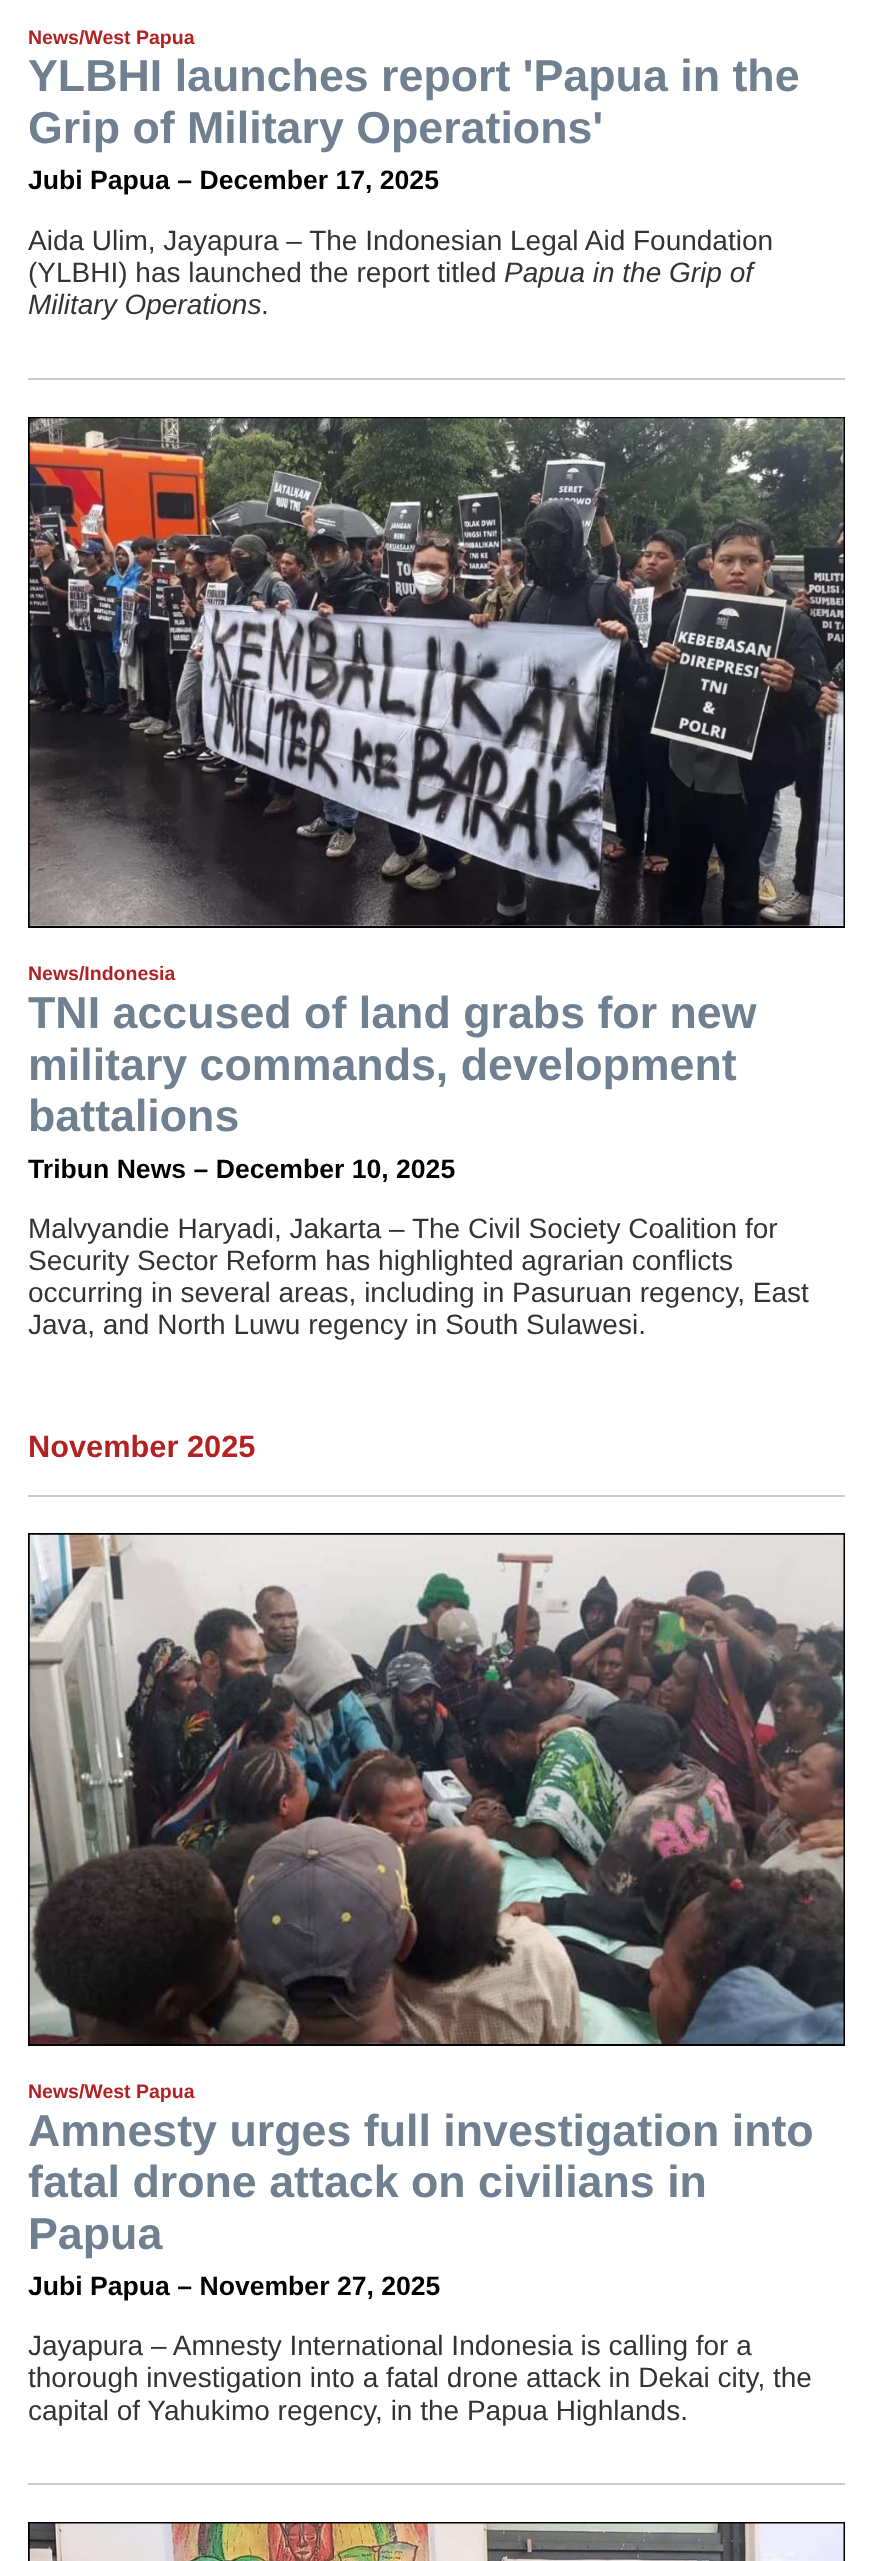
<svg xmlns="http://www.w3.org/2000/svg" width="873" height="2561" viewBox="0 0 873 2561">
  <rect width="100%" height="100%" fill="#ffffff"/>
  <text x="28" y="44" font-family="Liberation Sans" font-size="19.5" font-weight="bold" fill="#b22222">News/West Papua</text>
  <text x="28" y="91" font-family="Liberation Sans" font-size="44.75" font-weight="bold" fill="#708090">YLBHI launches report 'Papua in the</text>
  <text x="28" y="143" font-family="Liberation Sans" font-size="44.75" font-weight="bold" fill="#708090">Grip of Military Operations'</text>
  <text x="28" y="189" font-family="Liberation Sans" font-size="26.6" font-weight="bold" fill="#000000">Jubi Papua – December 17, 2025</text>
  <text x="28" y="250" font-family="Liberation Sans" font-size="28" fill="#333333">Aida Ulim, Jayapura – The Indonesian Legal Aid Foundation</text>
  <text x="28" y="282" font-family="Liberation Sans" font-size="28" fill="#333333">(YLBHI) has launched the report titled</text>
  <text x="504" y="282" font-family="Liberation Sans" font-size="28" font-style="italic" fill="#333333">Papua in the Grip of</text>
  <text x="28" y="314" font-family="Liberation Sans" font-size="28" font-style="italic" fill="#333333">Military Operations</text>
  <text x="261" y="314" font-family="Liberation Sans" font-size="28" fill="#333333">.</text>
  <rect x="28" y="378" width="817" height="2" fill="#cccccc"/>
  <rect x="29" y="418" width="815" height="509" fill="none" stroke="#000000" stroke-width="2"/>
  <image x="29" y="418" width="815" height="508" href="img1.png"/>
  <text x="28" y="980" font-family="Liberation Sans" font-size="19.5" font-weight="bold" fill="#b22222">News/Indonesia</text>
  <text x="28" y="1028" font-family="Liberation Sans" font-size="44.75" font-weight="bold" fill="#708090">TNI accused of land grabs for new</text>
  <text x="28" y="1080" font-family="Liberation Sans" font-size="44.75" font-weight="bold" fill="#708090">military commands, development</text>
  <text x="28" y="1131" font-family="Liberation Sans" font-size="44.75" font-weight="bold" fill="#708090">battalions</text>
  <text x="28" y="1178" font-family="Liberation Sans" font-size="26.6" font-weight="bold" fill="#000000">Tribun News – December 10, 2025</text>
  <text x="28" y="1238" font-family="Liberation Sans" font-size="28" fill="#333333">Malvyandie Haryadi, Jakarta – The Civil Society Coalition for</text>
  <text x="28" y="1270" font-family="Liberation Sans" font-size="28" fill="#333333">Security Sector Reform has highlighted agrarian conflicts</text>
  <text x="28" y="1302" font-family="Liberation Sans" font-size="28" fill="#333333">occurring in several areas, including in Pasuruan regency, East</text>
  <text x="28" y="1334" font-family="Liberation Sans" font-size="28" fill="#333333">Java, and North Luwu regency in South Sulawesi.</text>
  <text x="28" y="1457" font-family="Liberation Sans" font-size="30.75" font-weight="bold" fill="#b22222">November 2025</text>
  <rect x="28" y="1495" width="817" height="2" fill="#cccccc"/>
  <rect x="29" y="1534" width="815" height="511" fill="none" stroke="#000000" stroke-width="2"/>
  <image x="29" y="1534" width="815" height="510" href="img2.png"/>
  <text x="28" y="2098" font-family="Liberation Sans" font-size="19.5" font-weight="bold" fill="#b22222">News/West Papua</text>
  <text x="28" y="2146" font-family="Liberation Sans" font-size="44.75" font-weight="bold" fill="#708090">Amnesty urges full investigation into</text>
  <text x="28" y="2197" font-family="Liberation Sans" font-size="44.75" font-weight="bold" fill="#708090">fatal drone attack on civilians in</text>
  <text x="28" y="2249" font-family="Liberation Sans" font-size="44.75" font-weight="bold" fill="#708090">Papua</text>
  <text x="28" y="2295" font-family="Liberation Sans" font-size="26.6" font-weight="bold" fill="#000000">Jubi Papua – November 27, 2025</text>
  <text x="28" y="2355" font-family="Liberation Sans" font-size="28" fill="#333333">Jayapura – Amnesty International Indonesia is calling for a</text>
  <text x="28" y="2387" font-family="Liberation Sans" font-size="28" fill="#333333">thorough investigation into a fatal drone attack in Dekai city, the</text>
  <text x="28" y="2420" font-family="Liberation Sans" font-size="28" fill="#333333">capital of Yahukimo regency, in the Papua Highlands.</text>
  <rect x="28" y="2483" width="817" height="2" fill="#cccccc"/>
  <rect x="29" y="2523" width="815" height="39" fill="none" stroke="#000000" stroke-width="2"/>
  <image x="29" y="2523" width="815" height="38" href="img3.png"/>
</svg>
